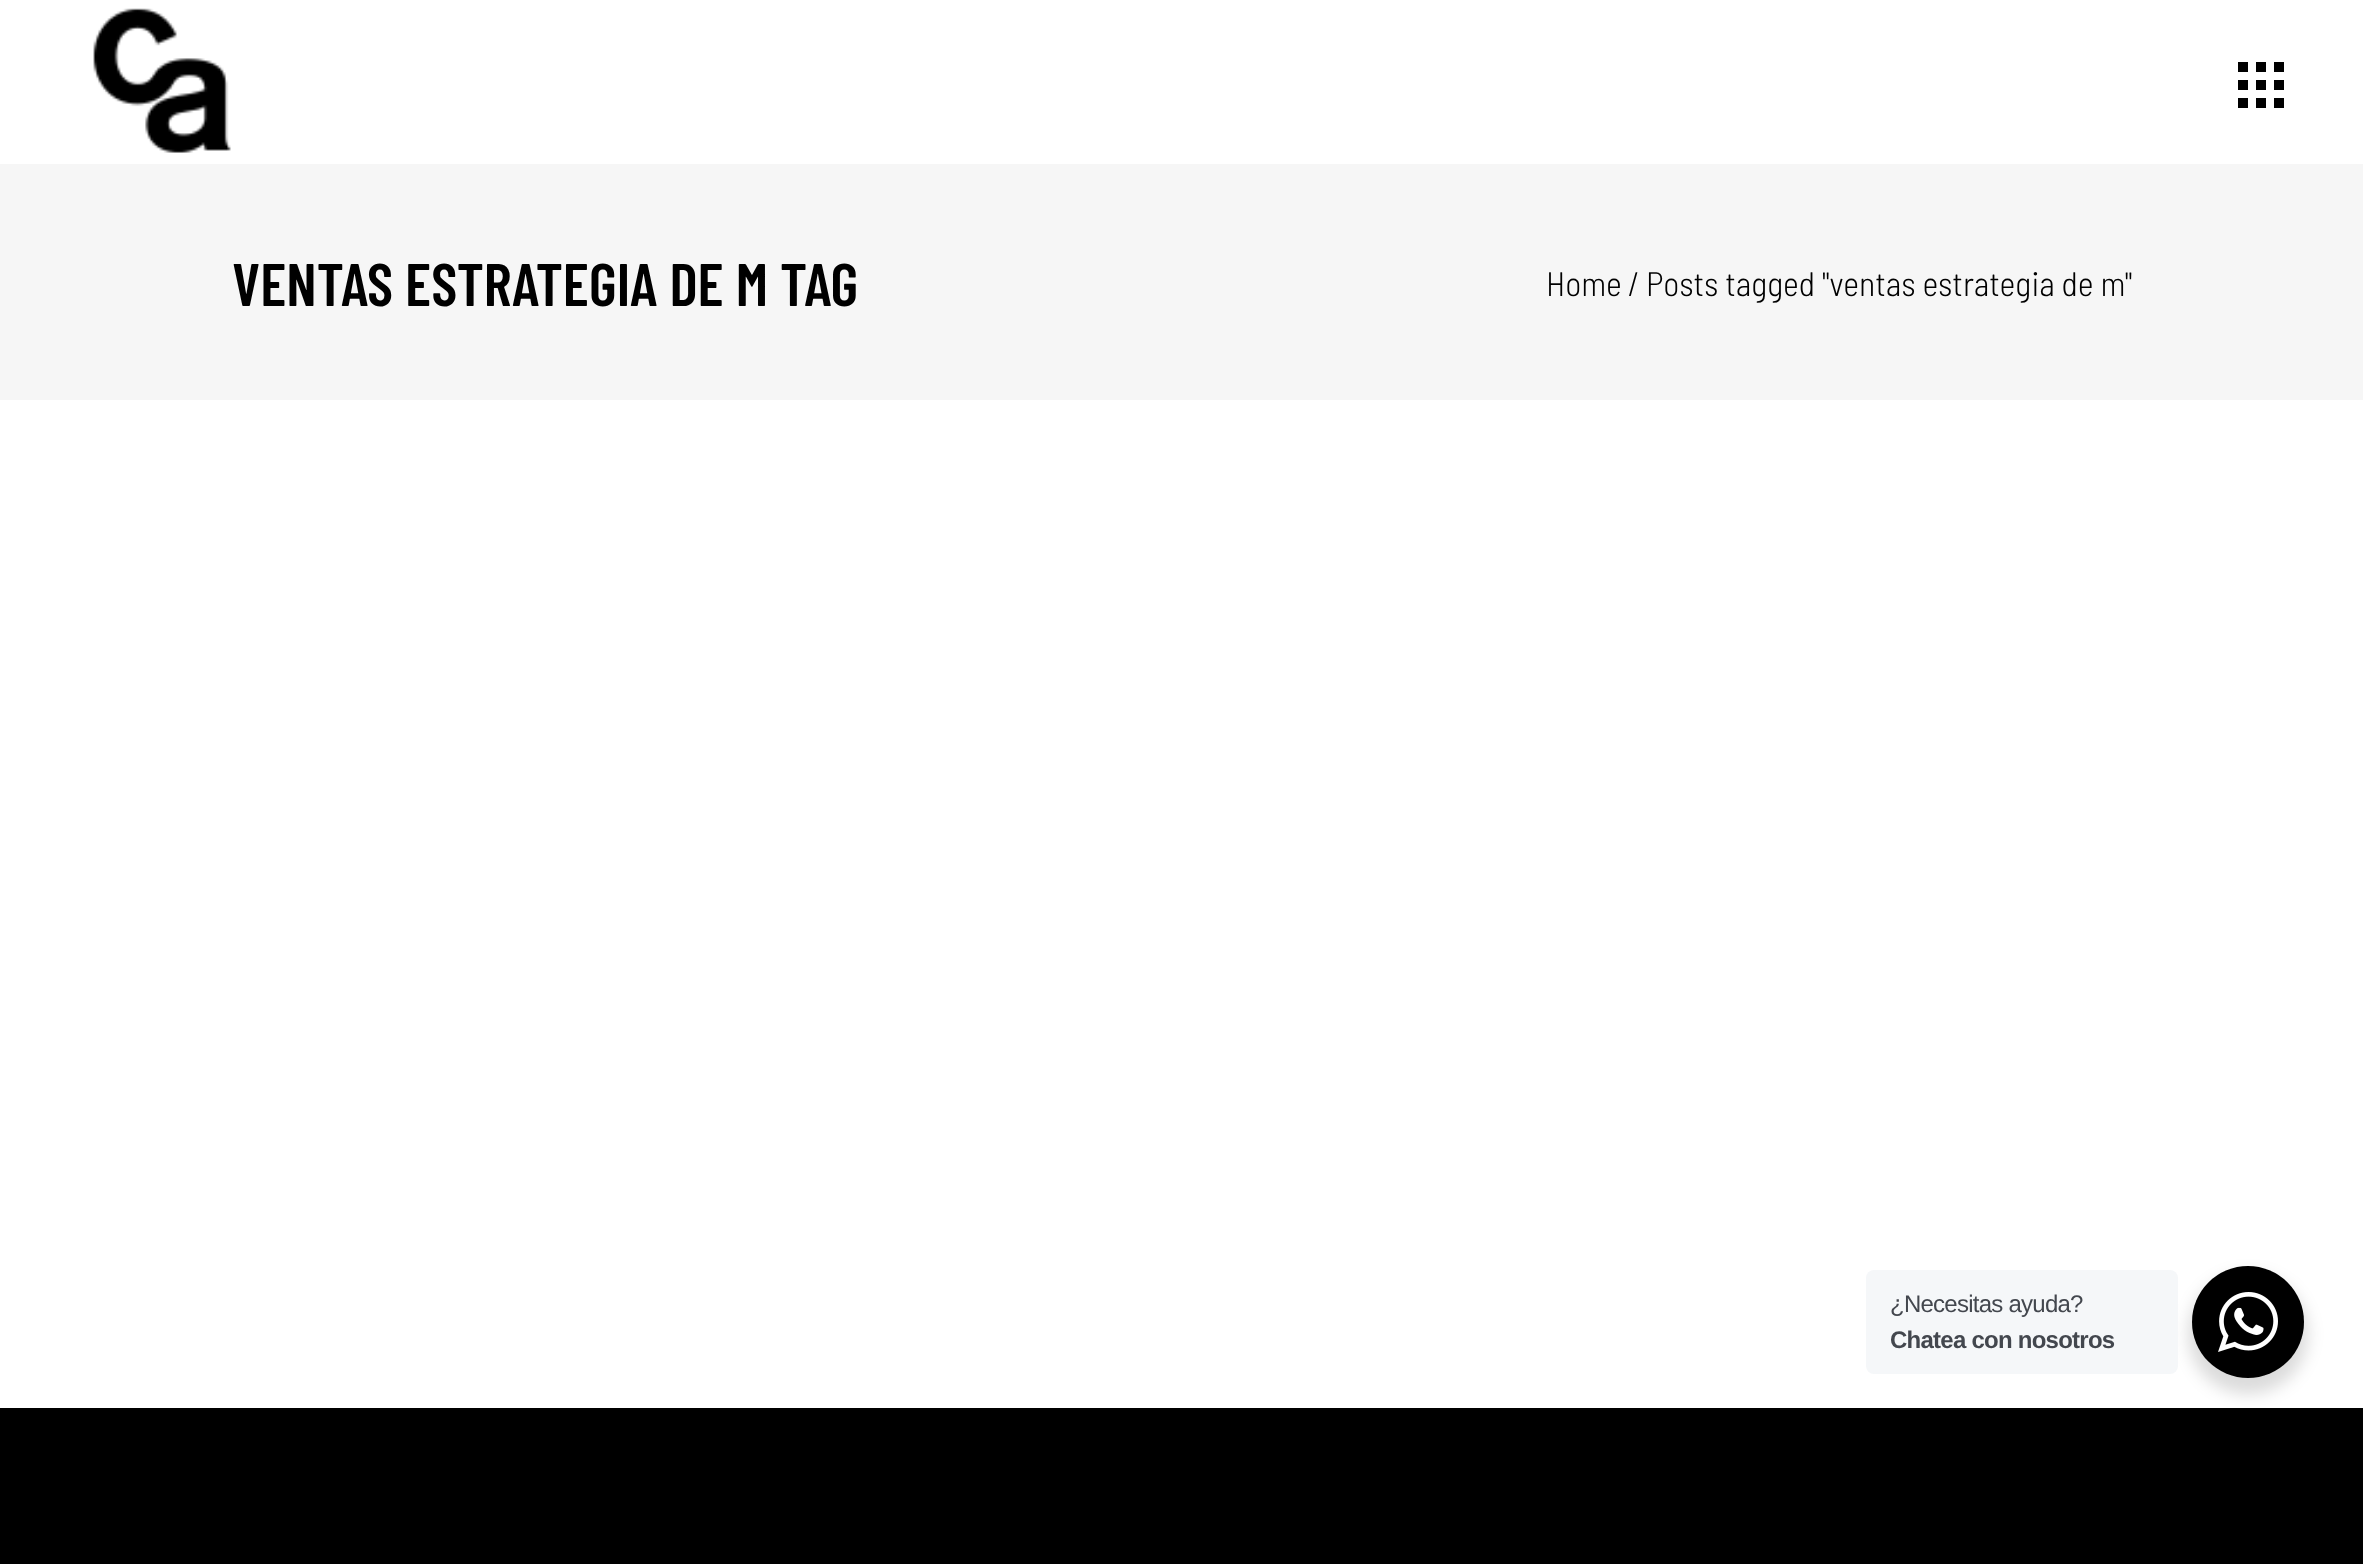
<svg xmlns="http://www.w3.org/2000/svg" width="2363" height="1564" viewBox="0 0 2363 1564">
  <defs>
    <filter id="blur1" x="-50%" y="-200%" width="200%" height="500%"><feGaussianBlur stdDeviation="8"/></filter>
  </defs>
  <rect width="100%" height="100%" fill="#ffffff"/>
  <image x="93" y="8" width="138" height="145" href="img1.png"/>
  <rect x="2238" y="62" width="10" height="10" fill="#000000"/>
  <rect x="2256" y="62" width="10" height="10" fill="#000000"/>
  <rect x="2274" y="62" width="10" height="10" fill="#000000"/>
  <rect x="2238" y="80" width="10" height="10" fill="#000000"/>
  <rect x="2256" y="80" width="10" height="10" fill="#000000"/>
  <rect x="2274" y="80" width="10" height="10" fill="#000000"/>
  <rect x="2238" y="98" width="10" height="10" fill="#000000"/>
  <rect x="2256" y="98" width="10" height="10" fill="#000000"/>
  <rect x="2274" y="98" width="10" height="10" fill="#000000"/>
  <rect x="0" y="164" width="2363" height="236" fill="#f6f6f6"/>
  <text x="232" y="306" font-family="Barlow Condensed" font-size="60" font-weight="600" fill="#000000">VENTAS ESTRATEGIA DE M TAG</text>
  <text x="1546" y="296" font-family="Barlow Semi Condensed" font-size="34" font-weight="300" fill="#000000">Home</text>
  <text x="1628" y="296" font-family="Barlow Semi Condensed" font-size="34" font-weight="300" fill="#000000">/</text>
  <text x="1646" y="296" font-family="Barlow Semi Condensed" font-size="34" font-weight="300" fill="#000000">Posts tagged "ventas estrategia de m"</text>
  <rect x="0" y="1408" width="2363" height="156" fill="#000000"/>
  <rect x="2188" y="1274" width="120" height="120" rx="60" fill="#000000" fill-opacity="0.14" filter="url(#blur1)"/>
  <rect x="1866" y="1270" width="312" height="104" rx="8" fill="#f5f7f9"/>
  <text x="1890" y="1312" font-family="Liberation Sans" font-size="24" letter-spacing="-0.75" fill="#43474e">¿Necesitas ayuda?</text>
  <text x="1890" y="1348" font-family="Liberation Sans" font-size="24" font-weight="bold" letter-spacing="-0.75" fill="#43474e">Chatea con nosotros</text>
  <circle cx="2248" cy="1322" r="56" fill="#000000"/>
  <image x="2218" y="1292" width="60" height="60" href="img2.png"/>
</svg>
